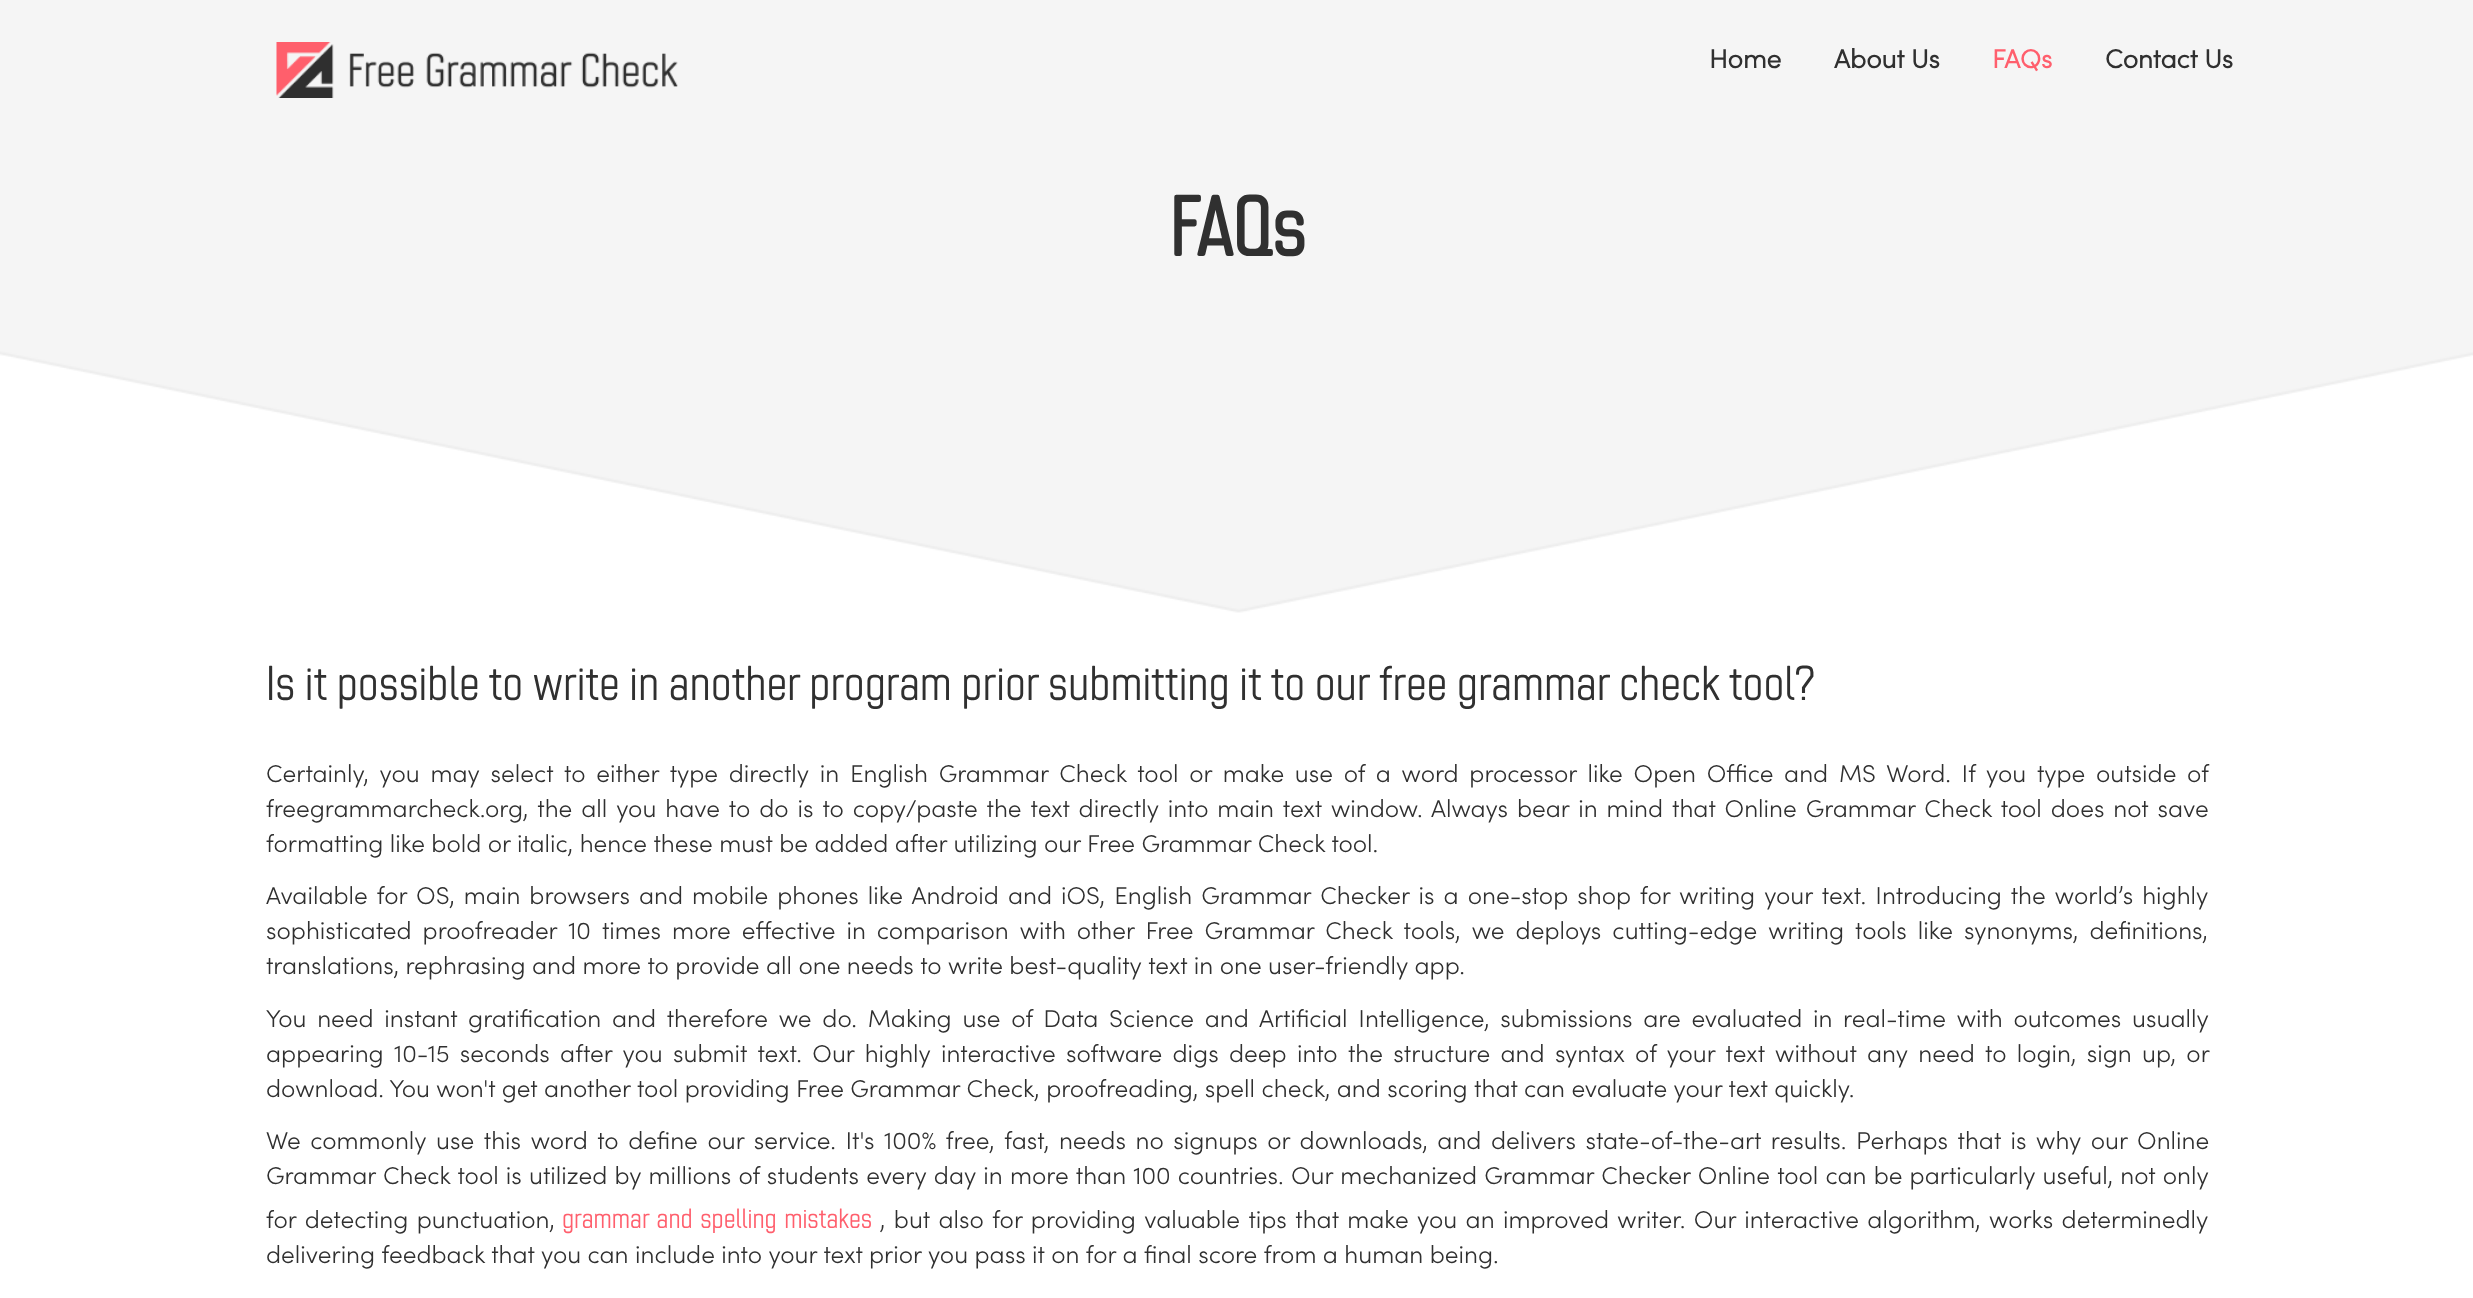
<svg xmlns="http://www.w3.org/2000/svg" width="2473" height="1298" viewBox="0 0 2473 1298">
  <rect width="100%" height="100%" fill="#ffffff"/>
  <image x="0" y="0" width="2473" height="613" href="img1.png"/>
  <image x="276" y="42" width="402" height="56" href="img2.png"/>
  <text x="1709" y="68" font-family="Sofia" font-size="26.25" font-weight="bold" fill="#303030">Home</text>
  <text x="1834" y="68" font-family="Sofia" font-size="26.25" font-weight="bold" fill="#303030">About Us</text>
  <text x="1992" y="68" font-family="Sofia" font-size="26.25" font-weight="bold" fill="#ff5f6d">FAQs</text>
  <text x="2105" y="68" font-family="Sofia" font-size="26.25" font-weight="bold" fill="#303030">Contact Us</text>
  <text x="1169" y="256" font-family="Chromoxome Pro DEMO" font-size="84" font-weight="bold" fill="#303030">FAQs</text>
  <text x="266" y="700" font-family="Chromoxome Pro DEMO" font-size="49" font-weight="300" fill="#303030">Is it possible to write in another program prior submitting it to our free grammar check tool?</text>
  <text x="266" y="782" word-spacing="4.3" font-family="Sofia" font-size="24.5" font-weight="300" fill="#303030">Certainly, you may select to either type directly in English Grammar Check tool or make use of a word processor like Open Office and MS Word. If you type outside of</text>
  <text x="266" y="817" word-spacing="2.5" font-family="Sofia" font-size="24.5" font-weight="300" fill="#303030">freegrammarcheck.org, the all you have to do is to copy/paste the text directly into main text window. Always bear in mind that Online Grammar Check tool does not save</text>
  <text x="266" y="852" font-family="Sofia" font-size="24.5" font-weight="300" fill="#303030">formatting like bold or italic, hence these must be added after utilizing our Free Grammar Check tool.</text>
  <text x="266" y="904" word-spacing="2.6" font-family="Sofia" font-size="24.5" font-weight="300" fill="#303030">Available for OS, main browsers and mobile phones like Android and iOS, English Grammar Checker is a one-stop shop for writing your text. Introducing the world’s highly</text>
  <text x="266" y="939" word-spacing="4.6" font-family="Sofia" font-size="24.5" font-weight="300" fill="#303030">sophisticated proofreader 10 times more effective in comparison with other Free Grammar Check tools, we deploys cutting-edge writing tools like synonyms, definitions,</text>
  <text x="266" y="974" font-family="Sofia" font-size="24.5" font-weight="300" fill="#303030">translations, rephrasing and more to provide all one needs to write best-quality text in one user-friendly app.</text>
  <text x="266" y="1027" word-spacing="4.3" font-family="Sofia" font-size="24.5" font-weight="300" fill="#303030">You need instant gratification and therefore we do. Making use of Data Science and Artificial Intelligence, submissions are evaluated in real-time with outcomes usually</text>
  <text x="266" y="1062" word-spacing="3.9" font-family="Sofia" font-size="24.5" font-weight="300" fill="#303030">appearing 10-15 seconds after you submit text. Our highly interactive software digs deep into the structure and syntax of your text without any need to login, sign up, or</text>
  <text x="266" y="1097" font-family="Sofia" font-size="24.5" font-weight="300" fill="#303030">download. You won't get another tool providing Free Grammar Check, proofreading, spell check, and scoring that can evaluate your text quickly.</text>
  <text x="266" y="1149" word-spacing="3.1" font-family="Sofia" font-size="24.5" font-weight="300" fill="#303030">We commonly use this word to define our service. It's 100% free, fast, needs no signups or downloads, and delivers state-of-the-art results. Perhaps that is why our Online</text>
  <text x="266" y="1184" word-spacing="0.75" font-family="Sofia" font-size="24.5" font-weight="300" fill="#303030">Grammar Check tool is utilized by millions of students every day in more than 100 countries. Our mechanized Grammar Checker Online tool can be particularly useful, not only</text>
  <text x="266" y="1228" word-spacing="2" font-family="Sofia" font-size="24.5" font-weight="300" fill="#303030">for detecting punctuation,</text>
  <text x="562" y="1228" word-spacing="2" font-family="Chromoxome Pro DEMO" font-size="28" font-weight="300" fill="#ff5f6d">grammar and spelling mistakes</text>
  <text x="880" y="1228" word-spacing="2" font-family="Sofia" font-size="24.5" font-weight="300" fill="#303030">, but also for providing valuable tips that make you an improved writer. Our interactive algorithm, works determinedly</text>
  <text x="266" y="1263" font-family="Sofia" font-size="24.5" font-weight="300" fill="#303030">delivering feedback that you can include into your text prior you pass it on for a final score from a human being.</text>
</svg>
